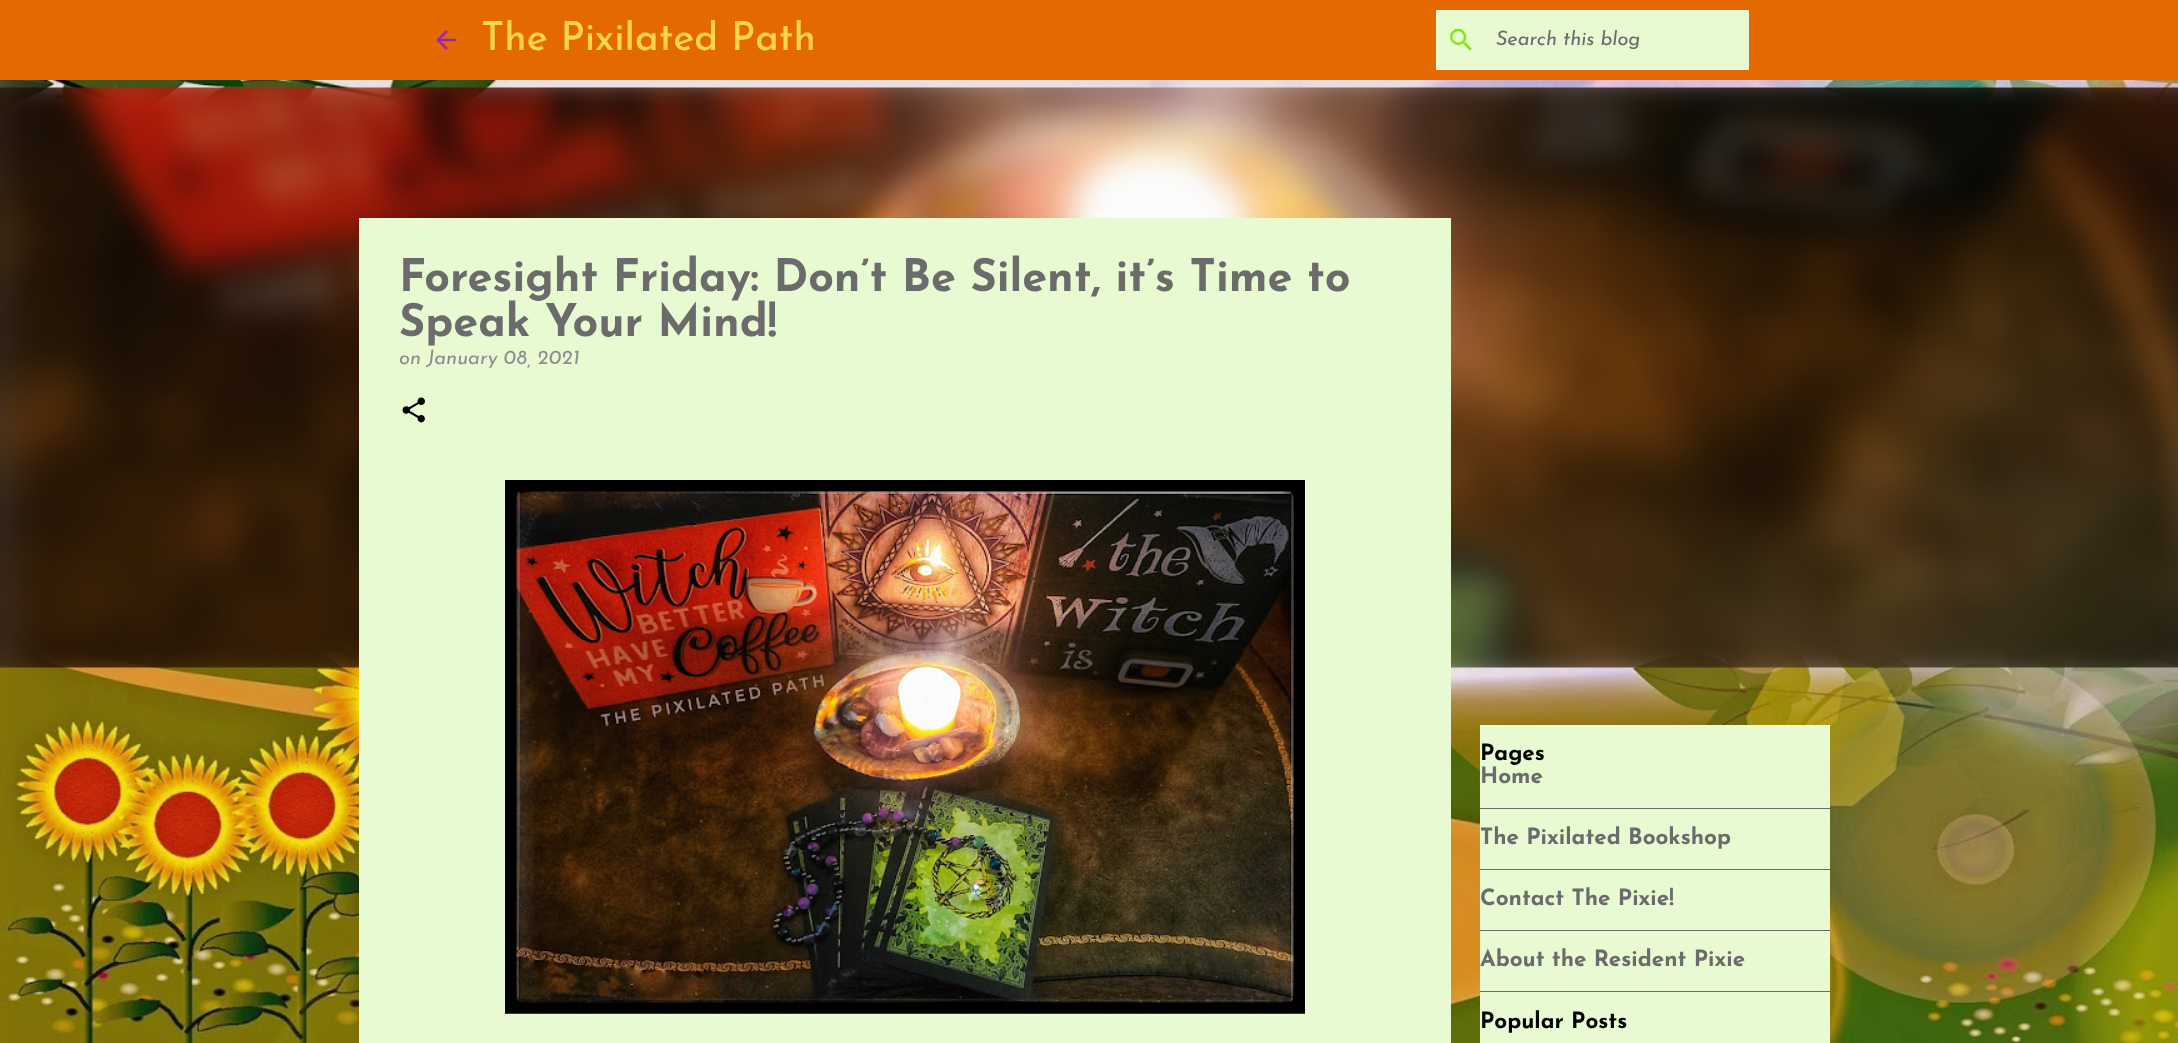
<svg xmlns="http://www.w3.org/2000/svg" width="2178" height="1043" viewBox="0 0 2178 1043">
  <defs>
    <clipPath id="clip1"><rect x="481" y="20" width="334" height="40"/></clipPath>
    <clipPath id="clip2"><rect x="1496" y="30" width="243" height="20"/></clipPath>
  </defs>
  <rect width="100%" height="100%" fill="#ffffff"/>
  <image x="0" y="80" width="2178" height="963" href="img1.png"/>
  <rect x="0" y="0" width="2178" height="80" fill="#e36900"/>
  <image x="436" y="30" width="21" height="20" href="img2.png"/>
  <g clip-path="url(#clip1)">
    <text x="481" y="50" font-family="Josefin Sans" font-size="40" font-weight="500" fill="#f9d44d">The Pixilated Path</text>
  </g>
  <rect x="1436" y="10" width="313" height="60" fill="#e7fad2"/>
  <image x="1449" y="28" width="24" height="23" href="img3.png"/>
  <g clip-path="url(#clip2)">
    <text x="1496" y="45" font-family="Josefin Sans" font-size="20" font-style="italic" fill="#6b6b6b">Search this blog</text>
  </g>
  <image x="0" y="87" width="2178" height="581" href="img6.png"/>
  <rect x="359" y="218" width="1092" height="825" fill="#e7fad2"/>
  <text x="399" y="291" font-family="Josefin Sans" font-size="45" font-weight="bold" fill="#6b6b6b">Foresight Friday: Don’t Be Silent, it’s Time to</text>
  <text x="399" y="336" font-family="Josefin Sans" font-size="45" font-weight="bold" fill="#6b6b6b">Speak Your Mind!</text>
  <text x="399" y="364" font-family="Josefin Sans" font-size="20" font-style="italic" fill="#8d8d8d">on January 08, 2021</text>
  <image x="402" y="397" width="23" height="26" href="img4.png"/>
  <image x="505" y="480" width="800" height="534" href="img5.png"/>
  <rect x="1480" y="725" width="350" height="318" fill="#e7fad2"/>
  <text x="1480" y="760" font-family="Josefin Sans" font-size="22.5" font-weight="bold" fill="#000000">Pages</text>
  <text x="1480" y="783" font-family="Josefin Sans" font-size="22.5" font-weight="bold" fill="#6b6b6b">Home</text>
  <rect x="1480" y="808" width="350" height="1" fill="#6a6a6a"/>
  <text x="1480" y="844" font-family="Josefin Sans" font-size="22.5" font-weight="bold" fill="#6b6b6b">The Pixilated Bookshop</text>
  <rect x="1480" y="869" width="350" height="1" fill="#6a6a6a"/>
  <text x="1480" y="905" font-family="Josefin Sans" font-size="22.5" font-weight="bold" fill="#6b6b6b">Contact The Pixie!</text>
  <rect x="1480" y="930" width="350" height="1" fill="#6a6a6a"/>
  <text x="1480" y="966" font-family="Josefin Sans" font-size="22.5" font-weight="bold" fill="#6b6b6b">About the Resident Pixie</text>
  <rect x="1480" y="991" width="350" height="1" fill="#6a6a6a"/>
  <text x="1480" y="1028" font-family="Josefin Sans" font-size="22.5" font-weight="bold" fill="#000000">Popular Posts</text>
</svg>
